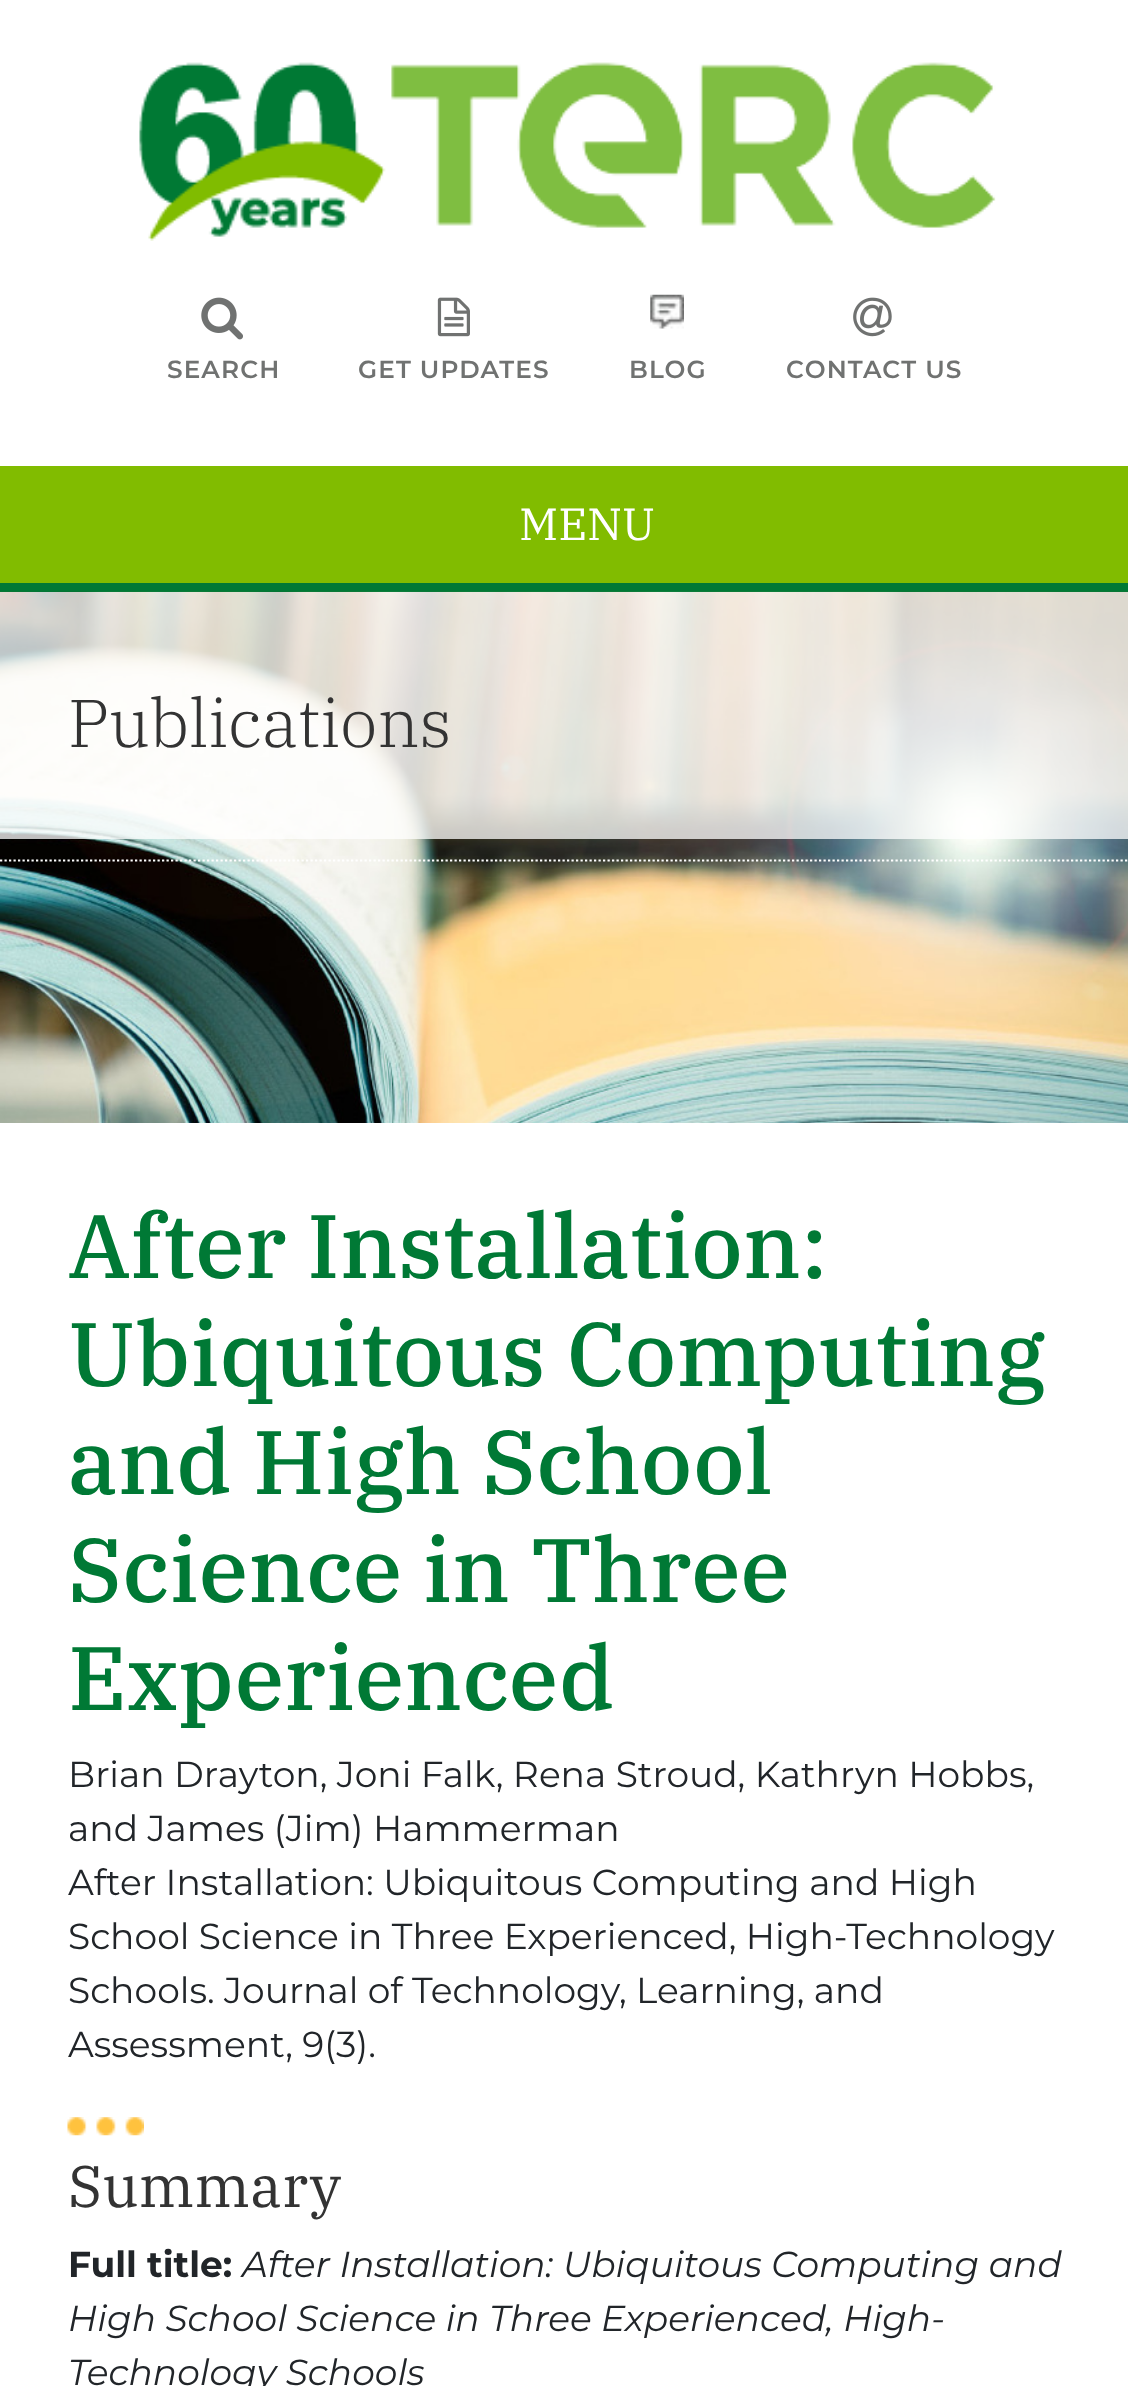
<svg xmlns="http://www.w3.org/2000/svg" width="1128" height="2386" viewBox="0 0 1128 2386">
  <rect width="100%" height="100%" fill="#ffffff"/>
  <image x="139" y="62" width="857" height="179" href="img1.png"/>
  <image x="201" y="297" width="42" height="43" href="img2.png"/>
  <text x="167" y="378" font-family="Montserrat" font-size="24.75" font-weight="600" letter-spacing="1.1" fill="#707271">SEARCH</text>
  <image x="437" y="297" width="33" height="40" href="img3.png"/>
  <text x="358" y="378" font-family="Montserrat" font-size="24.75" font-weight="600" letter-spacing="1.1" fill="#707271">GET UPDATES</text>
  <image x="650" y="294" width="34" height="35" href="img4.png"/>
  <text x="629" y="378" font-family="Montserrat" font-size="24.75" font-weight="600" letter-spacing="1.1" fill="#707271">BLOG</text>
  <image x="853" y="297" width="39" height="40" href="img5.png"/>
  <text x="786" y="378" font-family="Montserrat" font-size="24.75" font-weight="600" letter-spacing="1.1" fill="#707271">CONTACT US</text>
  <rect x="0" y="466" width="1128" height="117" fill="#81bc00"/>
  <rect x="0" y="583" width="1128" height="9" fill="#007935"/>
  <text x="519" y="540" font-family="IBM Plex Serif" font-size="45" fill="#ffffff">MENU</text>
  <image x="0" y="591" width="1128" height="532" href="img6.png"/>
  <rect x="0" y="592" width="1128" height="247" fill="#ffffff" fill-opacity="0.75"/>
  <text x="68" y="747" font-family="IBM Plex Serif" font-size="67.5" font-weight="300" fill="#333333">Publications</text>
  <path d="M0 860.5H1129.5" fill="none" stroke="#ffffff" stroke-width="2.2" stroke-dasharray="2.25 2.25"/>
  <text x="68" y="1278" font-family="IBM Plex Serif" font-size="90" font-weight="500" fill="#007935">After Installation:</text>
  <text x="68" y="1386" font-family="IBM Plex Serif" font-size="90" font-weight="500" fill="#007935">Ubiquitous Computing</text>
  <text x="68" y="1494" font-family="IBM Plex Serif" font-size="90" font-weight="500" fill="#007935">and High School</text>
  <text x="68" y="1602" font-family="IBM Plex Serif" font-size="90" font-weight="500" fill="#007935">Science in Three</text>
  <text x="68" y="1710" font-family="IBM Plex Serif" font-size="90" font-weight="500" fill="#007935">Experienced</text>
  <text x="68" y="1787" font-family="Montserrat" font-size="36" fill="#212529">Brian Drayton, Joni Falk, Rena Stroud, Kathryn Hobbs,</text>
  <text x="68" y="1841" font-family="Montserrat" font-size="36" fill="#212529">and James (Jim) Hammerman</text>
  <text x="68" y="1895" font-family="Montserrat" font-size="36" fill="#212529">After Installation: Ubiquitous Computing and High</text>
  <text x="68" y="1949" font-family="Montserrat" font-size="36" fill="#212529">School Science in Three Experienced, High-Technology</text>
  <text x="68" y="2003" font-family="Montserrat" font-size="36" fill="#212529">Schools. Journal of Technology, Learning, and</text>
  <text x="68" y="2057" font-family="Montserrat" font-size="36" fill="#212529">Assessment, 9(3).</text>
  <image x="67" y="2117" width="77" height="19" href="img7.png"/>
  <text x="68" y="2207" font-family="IBM Plex Serif" font-size="58.5" fill="#333333">Summary</text>
  <text x="68" y="2277" font-family="Montserrat" font-size="36" font-weight="bold" fill="#212529">Full title:</text>
  <text x="242" y="2277" font-family="Montserrat" font-size="36" font-style="italic" fill="#212529">After Installation: Ubiquitous Computing and</text>
  <text x="68" y="2331" font-family="Montserrat" font-size="36" font-style="italic" fill="#212529">High School Science in Three Experienced, High-</text>
  <text x="68" y="2385" font-family="Montserrat" font-size="36" font-style="italic" fill="#212529">Technology Schools</text>
</svg>
